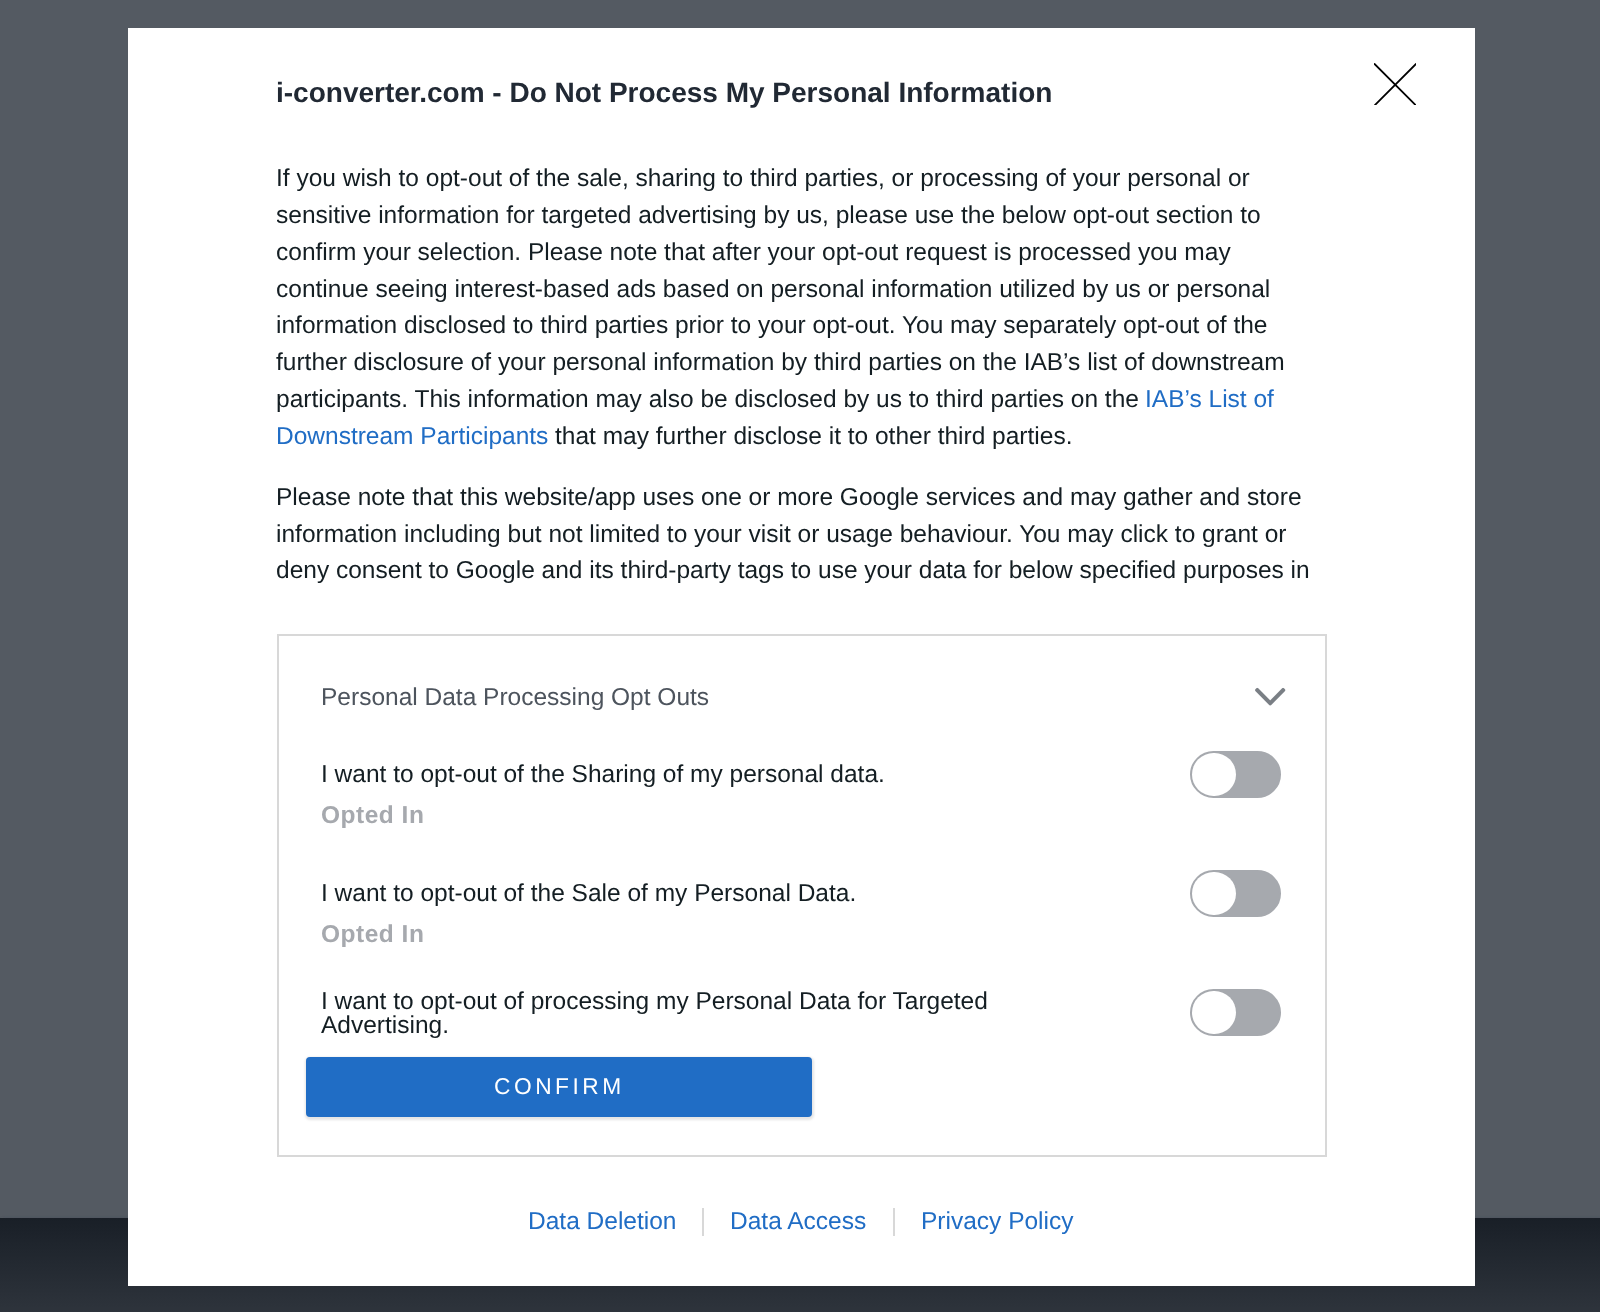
<svg xmlns="http://www.w3.org/2000/svg" width="1600" height="1312" viewBox="0 0 1600 1312">
  <defs>
    <filter id="blur1" x="-50%" y="-200%" width="200%" height="500%"><feGaussianBlur stdDeviation="2"/></filter>
    <linearGradient id="g1" gradientUnits="userSpaceOnUse" x1="801" y1="1218" x2="801" y2="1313"><stop offset="0" stop-color="#191f27"/><stop offset="1" stop-color="#2e343c"/></linearGradient>
    <clipPath id="clip1"><rect x="277" y="135" width="1050" height="472"/></clipPath>
    <filter id="blur2" x="-50%" y="-200%" width="200%" height="500%"><feGaussianBlur stdDeviation="1"/></filter>
    <clipPath id="clip2"><rect x="1374" y="63" width="42" height="42"/></clipPath>
  </defs>
  <rect width="100%" height="100%" fill="#545a62"/>
  <rect x="2" y="1220" width="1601" height="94" fill="#373d45" filter="url(#blur1)"/>
  <rect x="0" y="1218" width="1600" height="94" fill="url(#g1)"/>
  <rect x="128" y="28" width="1347" height="1258" fill="#ffffff"/>
  <text x="276" y="102" font-family="Liberation Sans" font-size="28" font-weight="bold" fill="#212934">i-converter.com - Do Not Process My Personal Information</text>
  <text x="276" y="186" font-family="Liberation Sans" font-size="24.5" fill="#141e23">If you wish to opt-out of the sale, sharing to third parties, or processing of your personal or</text>
  <g clip-path="url(#clip1)">
    <text x="276" y="223" font-family="Liberation Sans" font-size="24.5" fill="#141e23">sensitive information for targeted advertising by us, please use the below opt-out section to</text>
    <text x="276" y="260" font-family="Liberation Sans" font-size="24.5" fill="#141e23">confirm your selection. Please note that after your opt-out request is processed you may</text>
    <text x="276" y="297" font-family="Liberation Sans" font-size="24.5" fill="#141e23">continue seeing interest-based ads based on personal information utilized by us or personal</text>
  </g>
  <text x="276" y="333" font-family="Liberation Sans" font-size="24.5" fill="#141e23">information disclosed to third parties prior to your opt-out. You may separately opt-out of the</text>
  <text x="276" y="370" font-family="Liberation Sans" font-size="24.5" fill="#141e23">further disclosure of your personal information by third parties on the IAB’s list of downstream</text>
  <text x="276" y="407" font-family="Liberation Sans" font-size="24.5" fill="#141e23">participants. This information may also be disclosed by us to third parties on the</text>
  <text x="1145" y="407" font-family="Liberation Sans" font-size="24.5" fill="#206dc5">IAB’s List of</text>
  <text x="276" y="444" font-family="Liberation Sans" font-size="24.5" fill="#206dc5">Downstream Participants</text>
  <text x="555" y="444" font-family="Liberation Sans" font-size="24.5" fill="#141e23">that may further disclose it to other third parties.</text>
  <text x="276" y="505" font-family="Liberation Sans" font-size="24.5" fill="#141e23">Please note that this website/app uses one or more Google services and may gather and store</text>
  <text x="276" y="542" font-family="Liberation Sans" font-size="24.5" fill="#141e23">information including but not limited to your visit or usage behaviour. You may click to grant or</text>
  <g clip-path="url(#clip1)">
    <text x="276" y="578" font-family="Liberation Sans" font-size="24.5" fill="#141e23">deny consent to Google and its third-party tags to use your data for below specified purposes in</text>
  </g>
  <rect x="278" y="635" width="1048" height="521" fill="none" stroke="#d8d8d8" stroke-width="2"/>
  <text x="321" y="705" font-family="Liberation Sans" font-size="24.5" fill="#4d545d">Personal Data Processing Opt Outs</text>
  <image x="1255" y="687" width="31" height="19" href="img1.png"/>
  <text x="321" y="782" font-family="Liberation Sans" font-size="24.5" fill="#141e23">I want to opt-out of the Sharing of my personal data.</text>
  <rect x="1191" y="752" width="89" height="45" rx="22.5" fill="#a6a9ae" stroke="#a6a9ae" stroke-width="2"/>
  <rect x="1192" y="753" width="44" height="43" rx="21.5" fill="#ffffff"/>
  <text x="321" y="823" font-family="Liberation Sans" font-size="24.5" font-weight="bold" letter-spacing="0.5" fill="#a6a9ae">Opted In</text>
  <text x="321" y="901" font-family="Liberation Sans" font-size="24.5" fill="#141e23">I want to opt-out of the Sale of my Personal Data.</text>
  <rect x="1191" y="871" width="89" height="45" rx="22.5" fill="#a6a9ae" stroke="#a6a9ae" stroke-width="2"/>
  <rect x="1192" y="872" width="44" height="43" rx="21.5" fill="#ffffff"/>
  <text x="321" y="942" font-family="Liberation Sans" font-size="24.5" font-weight="bold" letter-spacing="0.5" fill="#a6a9ae">Opted In</text>
  <text x="321" y="1009" font-family="Liberation Sans" font-size="24.5" fill="#141e23">I want to opt-out of processing my Personal Data for Targeted</text>
  <text x="321" y="1033" font-family="Liberation Sans" font-size="24.5" fill="#141e23">Advertising.</text>
  <rect x="1191" y="990" width="89" height="45" rx="22.5" fill="#a6a9ae" stroke="#a6a9ae" stroke-width="2"/>
  <rect x="1192" y="991" width="44" height="43" rx="21.5" fill="#ffffff"/>
  <rect x="305" y="1057" width="509" height="63" rx="5" fill="#000000" fill-opacity="0.1" filter="url(#blur2)"/>
  <rect x="306" y="1057" width="506" height="60" rx="4" fill="#206dc5"/>
  <text x="494" y="1094" font-family="Liberation Sans" font-size="22.75" letter-spacing="3.5" fill="#ffffff">CONFIRM</text>
  <g clip-path="url(#clip2)">
    <path d="M1374.5 64L1416 105.5M1416 64L1374.5 105.5" fill="none" stroke="#000000" stroke-width="1.8" stroke-linecap="round" stroke-linejoin="round"/>
  </g>
  <text x="528" y="1229" font-family="Liberation Sans" font-size="24.5" fill="#206dc5">Data Deletion</text>
  <text x="730" y="1229" font-family="Liberation Sans" font-size="24.5" fill="#206dc5">Data Access</text>
  <rect x="702" y="1208" width="2" height="28" fill="#d8d8d8"/>
  <text x="921" y="1229" font-family="Liberation Sans" font-size="24.5" fill="#206dc5">Privacy Policy</text>
  <rect x="893" y="1208" width="2" height="28" fill="#d8d8d8"/>
</svg>
